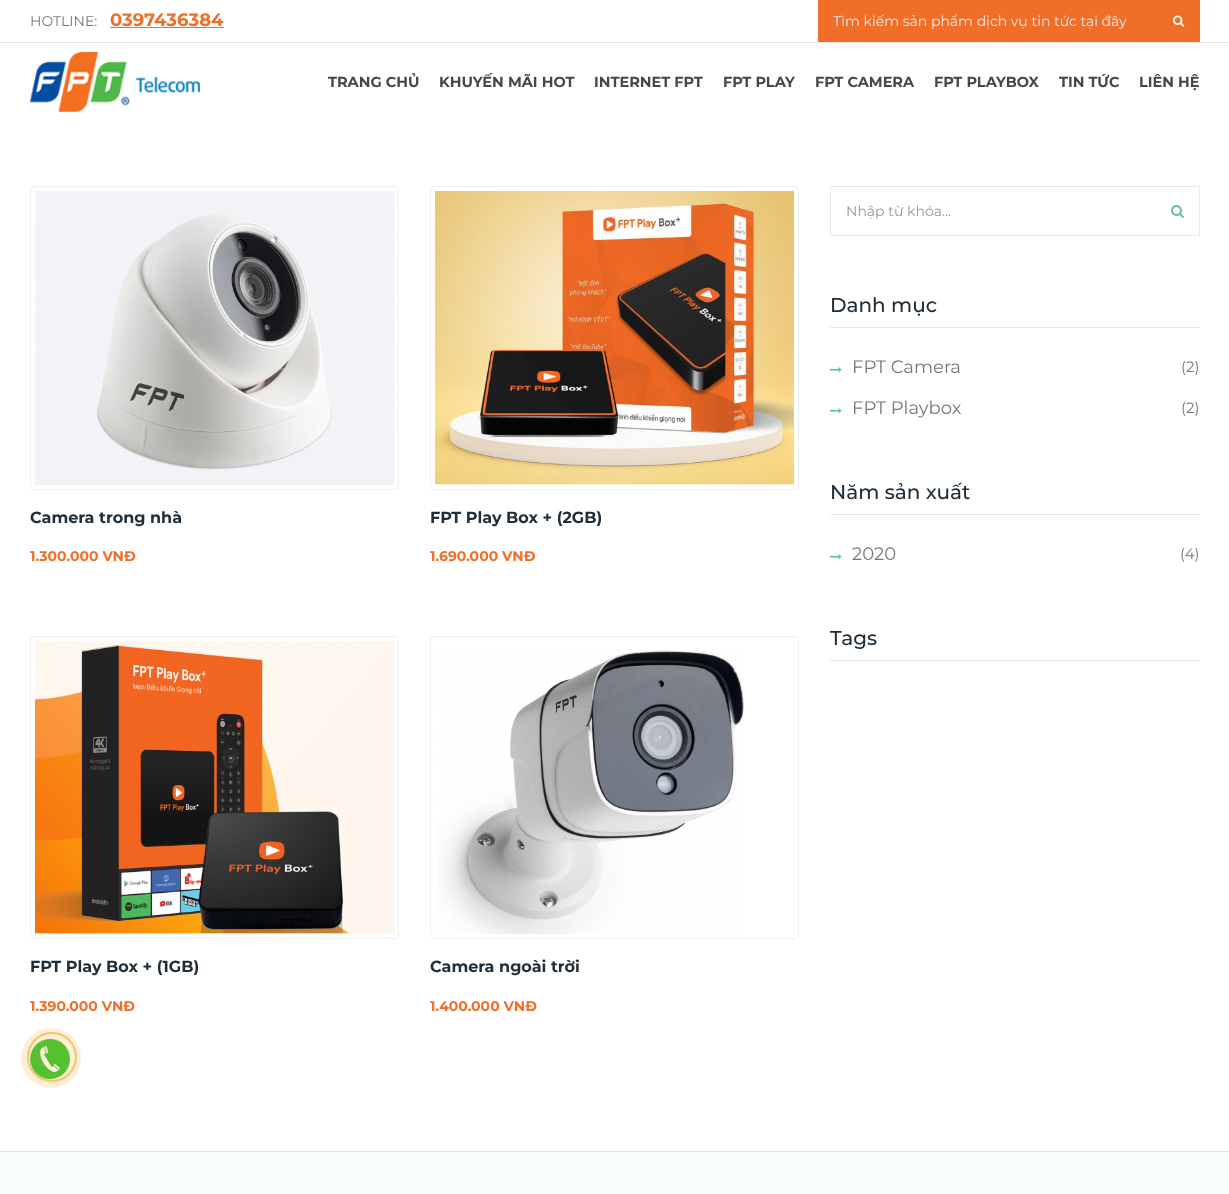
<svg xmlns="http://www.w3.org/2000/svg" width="1229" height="1194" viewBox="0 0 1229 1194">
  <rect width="100%" height="100%" fill="#ffffff"/>
  <rect x="0" y="42" width="1229" height="1" fill="#e6e6e6"/>
  <text x="30" y="26" font-family="Montserrat" font-size="14" fill="#777777">HOTLINE:</text>
  <text x="110" y="26" font-family="Montserrat" font-size="18" font-weight="bold" fill="#f06e28">0397436384</text>
  <rect x="110" y="27" width="114" height="1" fill="#f06e28"/>
  <rect x="818" y="0" width="382" height="42" fill="#f06e28"/>
  <text x="833" y="26" font-family="Montserrat" font-size="14" fill="#ededed">Tìm kiếm sản phẩm dịch vụ tin tức tại đây</text>
  <image x="1173" y="15" width="12" height="12" href="img1.png"/>
  <image x="29" y="52" width="171" height="60" href="img2.png"/>
  <text x="328" y="87" font-family="Montserrat" font-size="14.5" font-weight="bold" fill="#474747">TRANG CHỦ</text>
  <text x="439" y="87" font-family="Montserrat" font-size="14.5" font-weight="bold" fill="#474747">KHUYẾN MÃI HOT</text>
  <text x="594" y="87" font-family="Montserrat" font-size="14.5" font-weight="bold" fill="#474747">INTERNET FPT</text>
  <text x="723" y="87" font-family="Montserrat" font-size="14.5" font-weight="bold" fill="#474747">FPT PLAY</text>
  <text x="815" y="87" font-family="Montserrat" font-size="14.5" font-weight="bold" fill="#474747">FPT CAMERA</text>
  <text x="934" y="87" font-family="Montserrat" font-size="14.5" font-weight="bold" fill="#474747">FPT PLAYBOX</text>
  <text x="1059" y="87" font-family="Montserrat" font-size="14.5" font-weight="bold" fill="#474747">TIN TỨC</text>
  <text x="1139" y="87" font-family="Montserrat" font-size="14.5" font-weight="bold" fill="#474747">LIÊN HỆ</text>
  <rect x="830.5" y="186.5" width="369" height="49" fill="none" stroke="#e2edea"/>
  <text x="846" y="216" font-family="Montserrat" font-size="14" fill="#979797">Nhập từ khóa...</text>
  <image x="1171" y="205" width="13" height="13" href="img3.png"/>
  <rect x="830" y="327" width="370" height="1" fill="#e2edea"/>
  <text x="830" y="312" font-family="Montserrat" font-size="20" font-weight="500" fill="#202e39">Danh mục</text>
  <image x="830" y="367" width="12" height="6" href="img4.png"/>
  <text x="852" y="373" font-family="Montserrat" font-size="18" fill="#777777">FPT Camera</text>
  <text x="1181" y="372" font-family="Montserrat" font-size="15" fill="#777777">(2)</text>
  <image x="830" y="408" width="12" height="6" href="img4.png"/>
  <text x="852" y="414" font-family="Montserrat" font-size="18" fill="#777777">FPT Playbox</text>
  <text x="1181" y="413" font-family="Montserrat" font-size="15" fill="#777777">(2)</text>
  <rect x="830" y="514" width="370" height="1" fill="#e2edea"/>
  <text x="830" y="499" font-family="Montserrat" font-size="20" font-weight="500" fill="#202e39">Năm sản xuất</text>
  <image x="830" y="554" width="12" height="6" href="img4.png"/>
  <text x="852" y="560" font-family="Montserrat" font-size="18" fill="#777777">2020</text>
  <text x="1180" y="559" font-family="Montserrat" font-size="15" fill="#777777">(4)</text>
  <rect x="830" y="660" width="370" height="1" fill="#e2edea"/>
  <text x="830" y="645" font-family="Montserrat" font-size="20" font-weight="500" fill="#202e39">Tags</text>
  <rect x="30.5" y="186.5" width="368" height="303" rx="3.5" fill="none" stroke="#f0f0f0"/>
  <image x="35" y="191" width="359" height="294" href="img5.png"/>
  <text x="30" y="523" font-family="Montserrat" font-size="16" font-weight="bold" fill="#202e39">Camera trong nhà</text>
  <text x="30" y="561" font-family="Montserrat" font-size="14" font-weight="bold" fill="#f06e28">1.300.000 VNĐ</text>
  <rect x="430.5" y="186.5" width="368" height="303" rx="3.5" fill="none" stroke="#f0f0f0"/>
  <image x="435" y="191" width="359" height="294" href="img6.png"/>
  <text x="430" y="523" font-family="Montserrat" font-size="16" font-weight="bold" fill="#202e39">FPT Play Box + (2GB)</text>
  <text x="430" y="561" font-family="Montserrat" font-size="14" font-weight="bold" fill="#f06e28">1.690.000 VNĐ</text>
  <rect x="30.5" y="636.5" width="368" height="302" rx="3.5" fill="none" stroke="#f0f0f0"/>
  <image x="35" y="641" width="359" height="293" href="img7.png"/>
  <text x="30" y="972" font-family="Montserrat" font-size="16" font-weight="bold" fill="#202e39">FPT Play Box + (1GB)</text>
  <text x="30" y="1011" font-family="Montserrat" font-size="14" font-weight="bold" fill="#f06e28">1.390.000 VNĐ</text>
  <rect x="430.5" y="636.5" width="368" height="302" rx="3.5" fill="none" stroke="#f0f0f0"/>
  <image x="437" y="650" width="308" height="284" href="img8.png"/>
  <text x="430" y="972" font-family="Montserrat" font-size="16" font-weight="bold" fill="#202e39">Camera ngoài trời</text>
  <text x="430" y="1011" font-family="Montserrat" font-size="14" font-weight="bold" fill="#f06e28">1.400.000 VNĐ</text>
  <image x="30" y="1039" width="40" height="40" href="img9.png"/>
  <circle cx="52" cy="1057" r="24" fill="none" stroke="#ed9c10" stroke-opacity="0.5" stroke-width="2"/>
  <circle cx="51" cy="1058" r="30" fill="#ed9c10" fill-opacity="0.17"/>
  <rect x="0" y="1152" width="1229" height="42" fill="#f9fdfc"/>
  <rect x="0" y="1151" width="1229" height="1" fill="#e0e3e2"/>
</svg>
